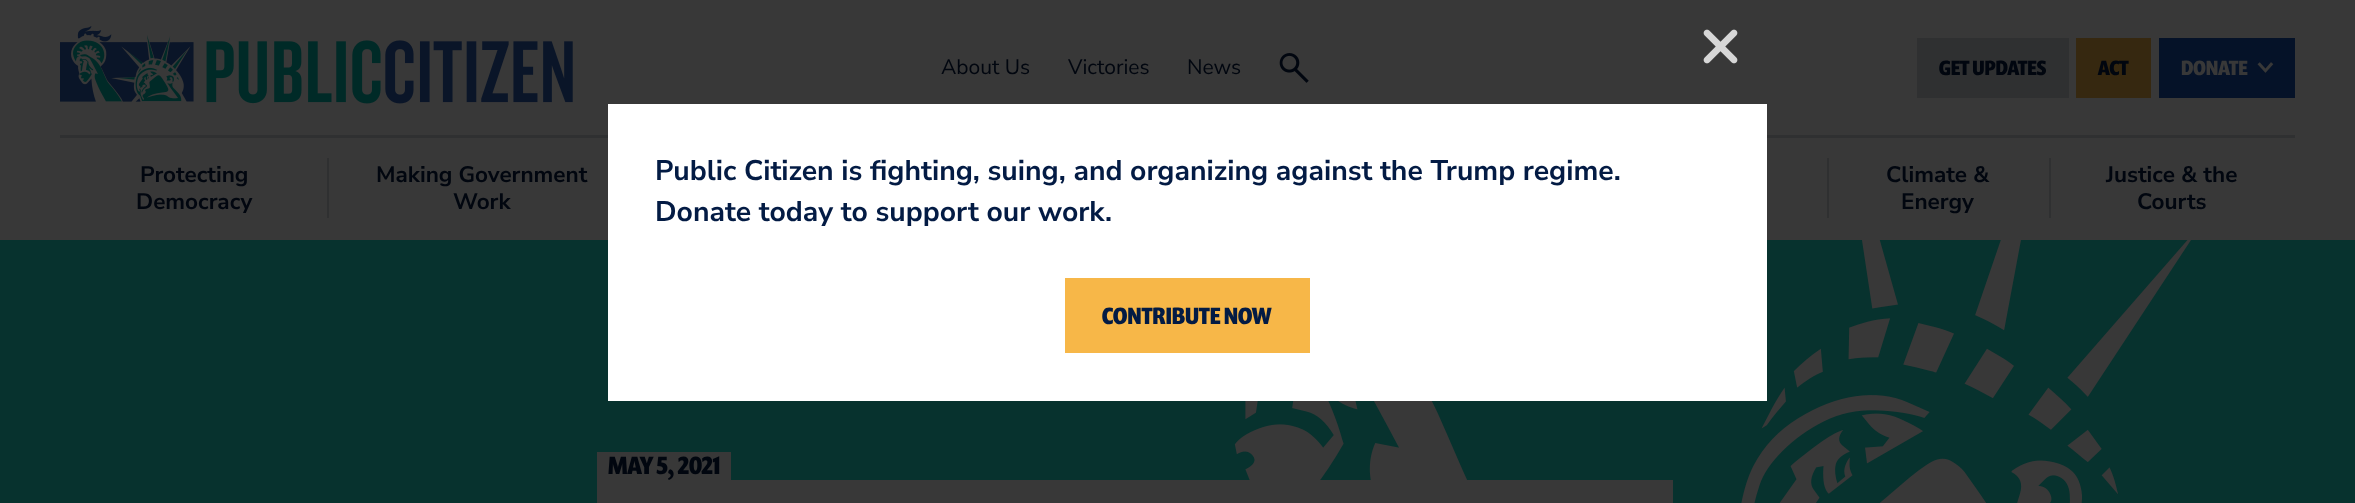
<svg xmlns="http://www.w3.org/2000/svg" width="2355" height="503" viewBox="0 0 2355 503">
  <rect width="100%" height="100%" fill="#383838"/>
  <image x="73" y="35" width="308" height="69" href="img2.png"/>
  <image x="60" y="26" width="513" height="78" href="img1.png"/>
  <text x="941" y="74" font-family="Nunito Sans" font-size="21" fill="#01060f">About Us</text>
  <text x="1068" y="74" font-family="Nunito Sans" font-size="21" fill="#01060f">Victories</text>
  <text x="1187" y="74" font-family="Nunito Sans" font-size="21" fill="#01060f">News</text>
  <image x="1279" y="53" width="30" height="30" href="img3.png"/>
  <rect x="1917" y="38" width="152" height="60" fill="#2f3031"/>
  <text x="1939" y="75" font-family="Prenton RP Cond" font-size="21" font-weight="bold" fill="#01060f">GET UPDATES</text>
  <rect x="2076" y="38" width="75" height="60" fill="#362810"/>
  <text x="2098" y="75" font-family="Prenton RP Cond" font-size="21" font-weight="bold" fill="#01060f">ACT</text>
  <rect x="2159" y="38" width="136" height="60" fill="#051228"/>
  <text x="2181" y="75" font-family="Prenton RP Cond" font-size="21" font-weight="bold" fill="#383838">DONATE</text>
  <image x="2257" y="62" width="17" height="11" href="img4.png"/>
  <rect x="60" y="135" width="2235" height="3" fill="#2f3031"/>
  <text x="140" y="182" font-family="Nunito Sans" font-size="22.5" font-weight="bold" fill="#01060f">Protecting</text>
  <text x="136" y="209" font-family="Nunito Sans" font-size="22.5" font-weight="bold" fill="#01060f">Democracy</text>
  <rect x="327" y="158" width="2" height="60" fill="#2f3031"/>
  <text x="376" y="182" font-family="Nunito Sans" font-size="22.5" font-weight="bold" fill="#01060f">Making Government</text>
  <text x="453" y="209" font-family="Nunito Sans" font-size="22.5" font-weight="bold" fill="#01060f">Work</text>
  <rect x="1827" y="158" width="2" height="60" fill="#2f3031"/>
  <text x="1886" y="182" font-family="Nunito Sans" font-size="22.5" font-weight="bold" fill="#01060f">Climate &amp;</text>
  <text x="1901" y="209" font-family="Nunito Sans" font-size="22.5" font-weight="bold" fill="#01060f">Energy</text>
  <rect x="2049" y="158" width="2" height="60" fill="#2f3031"/>
  <text x="2106" y="182" font-family="Nunito Sans" font-size="22.5" font-weight="bold" fill="#01060f">Justice &amp; the</text>
  <text x="2137" y="209" font-family="Nunito Sans" font-size="22.5" font-weight="bold" fill="#01060f">Courts</text>
  <rect x="0" y="240" width="2355" height="263" fill="#07322e"/>
  <image x="1234" y="240" width="957" height="263" href="img5.png"/>
  <rect x="597" y="452" width="134" height="28" fill="#383838"/>
  <text x="608" y="474" font-family="Prenton RP Cond" font-size="25.5" font-weight="bold" fill="#01060f">MAY 5, 2021</text>
  <rect x="597" y="480" width="1076" height="23" fill="#383838"/>
  <image x="1703" y="29" width="35" height="35" href="img6.png"/>
  <rect x="608" y="104" width="1159" height="297" fill="#ffffff"/>
  <text x="655" y="180" font-family="Nunito Sans" font-size="28.35" font-weight="bold" fill="#031b44">Public Citizen is fighting, suing, and organizing against the Trump regime.</text>
  <text x="655" y="221" font-family="Nunito Sans" font-size="28.35" font-weight="bold" fill="#031b44">Donate today to support our work.</text>
  <rect x="1065" y="278" width="245" height="75" fill="#f7b748"/>
  <text x="1102" y="324" font-family="Prenton RP Cond" font-size="24" font-weight="bold" fill="#031b44">CONTRIBUTE NOW</text>
</svg>
